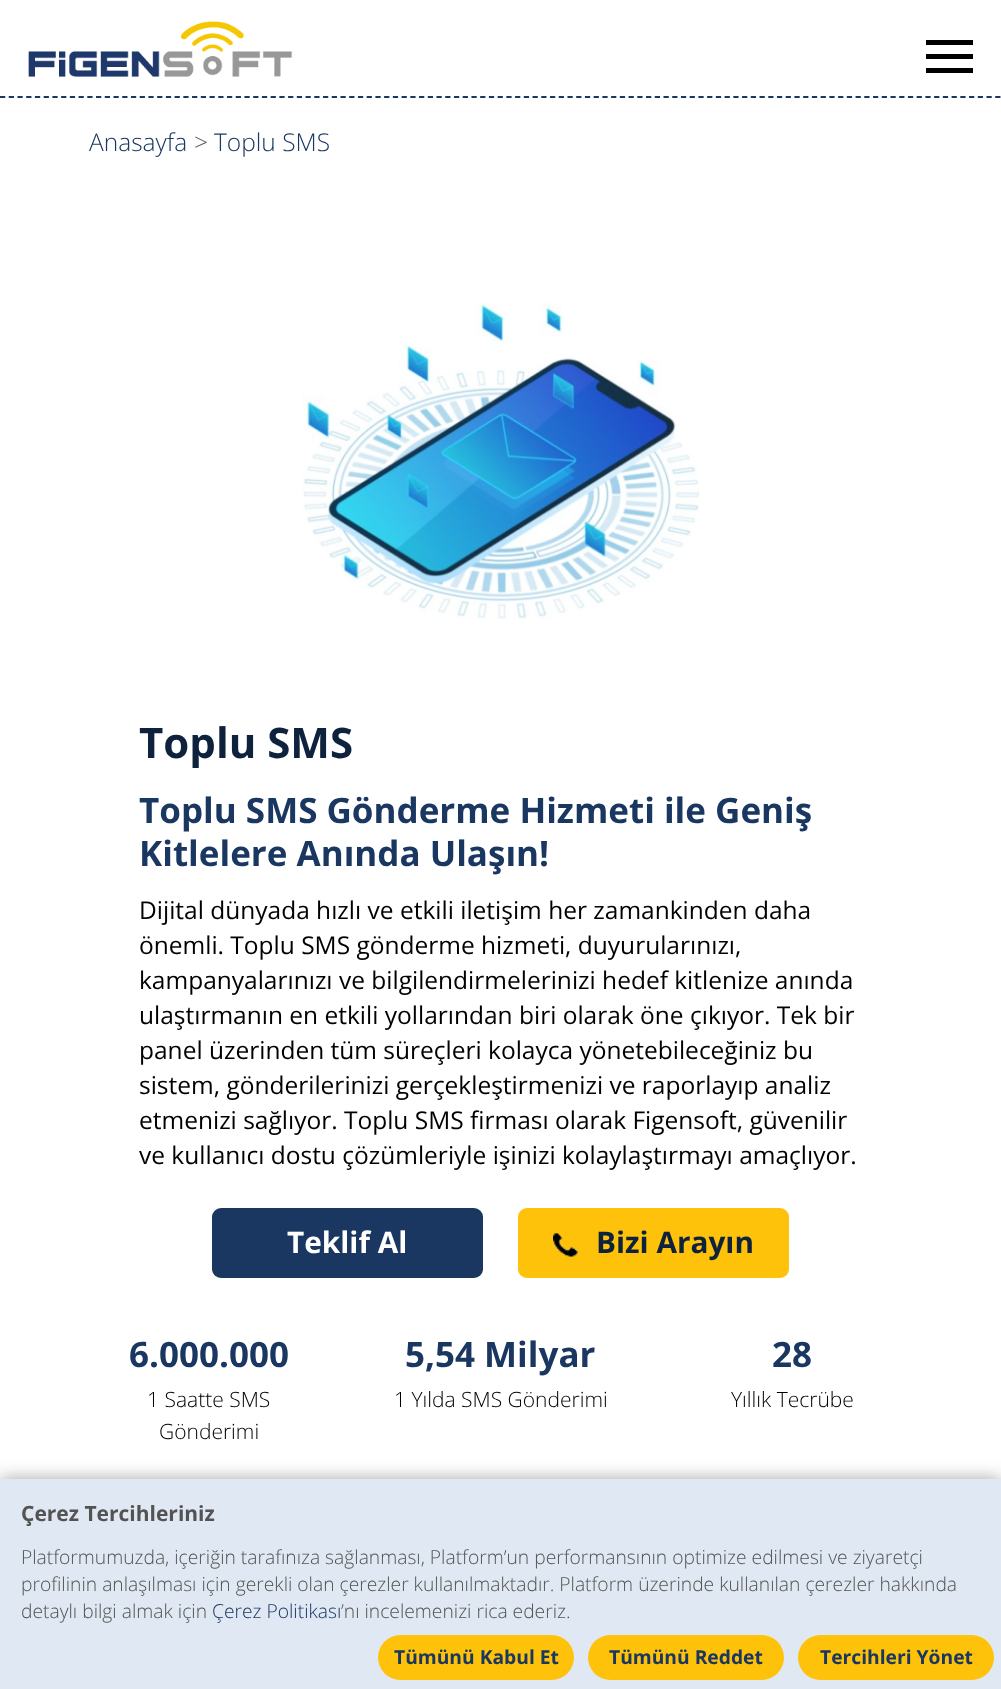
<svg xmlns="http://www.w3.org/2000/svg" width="1001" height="1689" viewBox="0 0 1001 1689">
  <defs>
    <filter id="blur1" x="-50%" y="-200%" width="200%" height="500%"><feGaussianBlur stdDeviation="9"/></filter>
  </defs>
  <rect width="100%" height="100%" fill="#ffffff"/>
  <path d="M0 97H1001" fill="none" stroke="#1a3761" stroke-width="1.8" stroke-dasharray="5.25 3.48"/>
  <image x="28" y="21" width="265" height="56" href="img1.png"/>
  <rect x="926" y="54" width="47" height="5" fill="#000000"/>
  <rect x="926" y="40" width="47" height="5" fill="#000000"/>
  <rect x="926" y="68" width="47" height="5" fill="#000000"/>
  <text x="89" y="151" font-family="Open Sans" font-size="24.5" font-weight="300" fill="#1a3761">Anasayfa</text>
  <text x="194" y="151" font-family="Open Sans" font-size="24.5" font-weight="300" fill="#535353">&gt;</text>
  <text x="214" y="151" font-family="Open Sans" font-size="24.5" font-weight="300" fill="#1a3761">Toplu SMS</text>
  <image x="302" y="302" width="398" height="317" href="img2.png"/>
  <text x="139" y="758" font-family="Open Sans" font-size="42" font-weight="bold" fill="#0e213d">Toplu SMS</text>
  <text x="139" y="823" font-family="Open Sans" font-size="35" font-weight="bold" fill="#1a3761">Toplu SMS Gönderme Hizmeti ile Geniş</text>
  <text x="139" y="866" font-family="Open Sans" font-size="35" font-weight="bold" fill="#1a3761">Kitlelere Anında Ulaşın!</text>
  <text x="139" y="919" font-family="Open Sans" font-size="24.5" fill="#000000">Dijital dünyada hızlı ve etkili iletişim her zamankinden daha</text>
  <text x="139" y="954" font-family="Open Sans" font-size="24.5" fill="#000000">önemli. Toplu SMS gönderme hizmeti, duyurularınızı,</text>
  <text x="139" y="989" font-family="Open Sans" font-size="24.5" fill="#000000">kampanyalarınızı ve bilgilendirmelerinizi hedef kitlenize anında</text>
  <text x="139" y="1024" font-family="Open Sans" font-size="24.5" fill="#000000">ulaştırmanın en etkili yollarından biri olarak öne çıkıyor. Tek bir</text>
  <text x="139" y="1059" font-family="Open Sans" font-size="24.5" fill="#000000">panel üzerinden tüm süreçleri kolayca yönetebileceğiniz bu</text>
  <text x="139" y="1094" font-family="Open Sans" font-size="24.5" fill="#000000">sistem, gönderilerinizi gerçekleştirmenizi ve raporlayıp analiz</text>
  <text x="139" y="1129" font-family="Open Sans" font-size="24.5" fill="#000000">etmenizi sağlıyor. Toplu SMS firması olarak Figensoft, güvenilir</text>
  <text x="139" y="1164" font-family="Open Sans" font-size="24.5" fill="#000000">ve kullanıcı dostu çözümleriyle işinizi kolaylaştırmayı amaçlıyor.</text>
  <rect x="212" y="1208" width="271" height="70" rx="9" fill="#1a3761"/>
  <text x="287" y="1253" font-family="Open Sans" font-size="29.75" font-weight="bold" fill="#ffffff">Teklif Al</text>
  <rect x="518" y="1208" width="271" height="70" rx="9" fill="#fdc209"/>
  <image x="553" y="1233" width="25" height="24" href="img3.png"/>
  <text x="596" y="1253" font-family="Open Sans" font-size="29.75" font-weight="bold" fill="#0e213d">Bizi Arayın</text>
  <text x="129" y="1367" font-family="Open Sans" font-size="35" font-weight="bold" fill="#1a3761">6.000.000</text>
  <text x="147" y="1407" font-family="Open Sans" font-size="21" font-weight="300" fill="#000000">1 Saatte SMS</text>
  <text x="159" y="1439" font-family="Open Sans" font-size="21" font-weight="300" fill="#000000">Gönderimi</text>
  <text x="405" y="1367" font-family="Open Sans" font-size="35" font-weight="bold" fill="#1a3761">5,54 Milyar</text>
  <text x="394" y="1407" font-family="Open Sans" font-size="21" font-weight="300" fill="#000000">1 Yılda SMS Gönderimi</text>
  <text x="772" y="1367" font-family="Open Sans" font-size="35" font-weight="bold" fill="#1a3761">28</text>
  <text x="731" y="1407" font-family="Open Sans" font-size="21" font-weight="300" fill="#000000">Yıllık Tecrübe</text>
  <rect x="0" y="1479" width="1001" height="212" fill="#000000" fill-opacity="0.36" filter="url(#blur1)"/>
  <rect x="0" y="1479" width="1001" height="210" fill="#e0e8f3"/>
  <text x="21" y="1521" font-family="Open Sans" font-size="21" font-weight="bold" fill="#535353">Çerez Tercihleriniz</text>
  <text x="21" y="1564" font-family="Open Sans" font-size="19.25" font-weight="300" fill="#535353">Platformumuzda, içeriğin tarafınıza sağlanması, Platform’un performansının optimize edilmesi ve ziyaretçi</text>
  <text x="21" y="1591" font-family="Open Sans" font-size="19.25" font-weight="300" fill="#535353">profilinin anlaşılması için gerekli olan çerezler kullanılmaktadır. Platform üzerinde kullanılan çerezler hakkında</text>
  <text x="21" y="1618" font-family="Open Sans" font-size="19.25" font-weight="300" fill="#535353">detaylı bilgi almak için</text>
  <text x="212" y="1618" font-family="Open Sans" font-size="19.25" font-weight="300" fill="#1a3761">Çerez Politikası</text>
  <text x="341" y="1618" font-family="Open Sans" font-size="19.25" font-weight="300" fill="#535353">’nı incelemenizi rica ederiz.</text>
  <rect x="378" y="1635" width="196" height="45" rx="22.5" fill="#fdc209"/>
  <text x="394" y="1664" font-family="Open Sans" font-size="19.25" font-weight="bold" fill="#1a3761">Tümünü Kabul Et</text>
  <rect x="588" y="1635" width="196" height="45" rx="22.5" fill="#fdc209"/>
  <text x="609" y="1664" font-family="Open Sans" font-size="19.25" font-weight="bold" fill="#1a3761">Tümünü Reddet</text>
  <rect x="798" y="1635" width="196" height="45" rx="22.5" fill="#fdc209"/>
  <text x="820" y="1664" font-family="Open Sans" font-size="19.25" font-weight="bold" fill="#1a3761">Tercihleri Yönet</text>
</svg>
